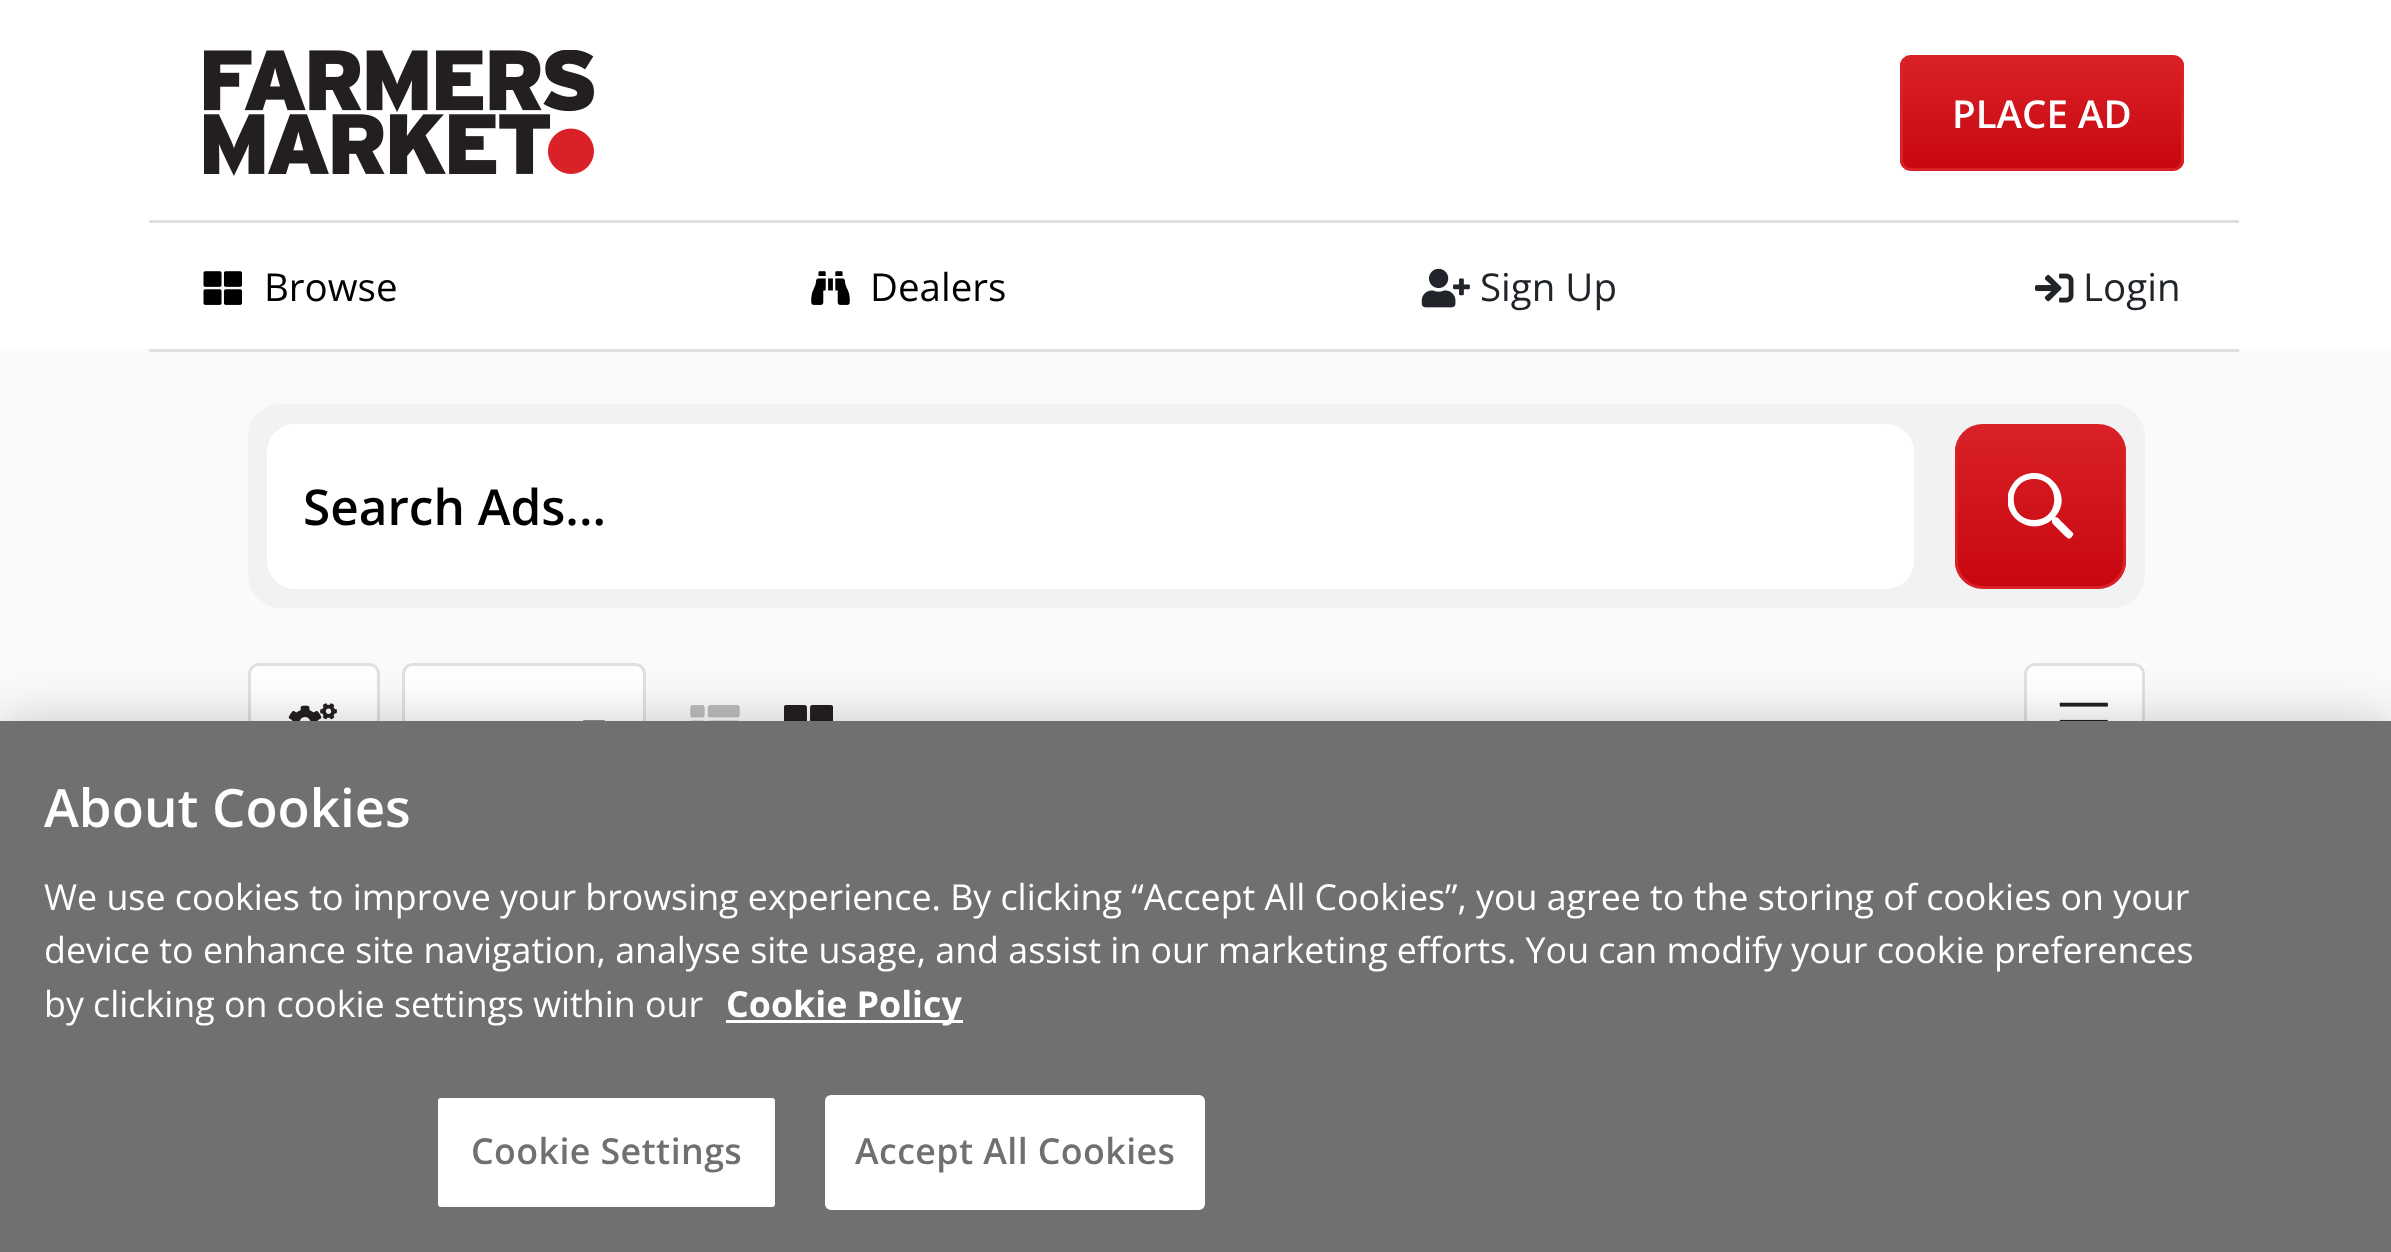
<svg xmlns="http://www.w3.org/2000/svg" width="2391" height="1252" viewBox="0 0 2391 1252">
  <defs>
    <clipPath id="clip1"><rect x="1900" y="55" width="284" height="116" rx="11"/></clipPath>
    <linearGradient id="g1" gradientUnits="userSpaceOnUse" x1="2042" y1="58" x2="2042" y2="168"><stop offset="0" stop-color="#da2128"/><stop offset="1" stop-color="#c7070f"/></linearGradient>
    <clipPath id="clip2"><rect x="1955" y="424" width="171" height="165" rx="28"/></clipPath>
    <linearGradient id="g2" gradientUnits="userSpaceOnUse" x1="2041" y1="426" x2="2041" y2="586"><stop offset="0" stop-color="#da2128"/><stop offset="1" stop-color="#c7070f"/></linearGradient>
    <clipPath id="clip3"><rect x="2008" y="473" width="66" height="69"/></clipPath>
    <filter id="blur1" x="-50%" y="-200%" width="200%" height="500%"><feGaussianBlur stdDeviation="25"/></filter>
  </defs>
  <rect width="100%" height="100%" fill="#fafafa"/>
  <rect x="0" y="0" width="2391" height="349" fill="#ffffff"/>
  <image x="204" y="50" width="390" height="126" href="img1.png"/>
  <rect x="149" y="220" width="2090" height="3" fill="#e0e0e0"/>
  <rect x="149" y="349" width="2090" height="3" fill="#e0e0e0"/>
  <g clip-path="url(#clip1)">
    <rect x="1900" y="58" width="284" height="110" fill="url(#g1)"/>
  </g>
  <rect x="1901.5" y="56.5" width="281" height="113" rx="9.5" fill="none" stroke="#da2128" stroke-width="3"/>
  <text x="1952" y="128" font-family="Open Sans" font-size="38.5" font-weight="600" fill="#ffffff">PLACE AD</text>
  <image x="203" y="271" width="39" height="34" href="img2.png"/>
  <text x="264" y="301" font-family="Open Sans" font-size="38.5" fill="#000000">Browse</text>
  <image x="811" y="271" width="39" height="34" href="img3.png"/>
  <text x="870" y="301" font-family="Open Sans" font-size="38.5" fill="#000000">Dealers</text>
  <image x="1421" y="268" width="49" height="40" href="img4.png"/>
  <text x="1480" y="301" font-family="Open Sans" font-size="38.5" fill="#212529">Sign Up</text>
  <image x="2035" y="273" width="39" height="30" href="img5.png"/>
  <text x="2083" y="301" font-family="Open Sans" font-size="38.5" fill="#212529">Login</text>
  <rect x="248" y="404" width="1897" height="204" rx="33" fill="#f2f2f2"/>
  <rect x="268.5" y="425.5" width="1644" height="162" rx="26.5" fill="#ffffff" stroke="#ffffff" stroke-width="3"/>
  <text x="303" y="525" font-family="Open Sans" font-size="49.5" font-weight="600" fill="#000000">Search Ads...</text>
  <g clip-path="url(#clip2)">
    <rect x="1955" y="426" width="171" height="160" fill="url(#g2)"/>
  </g>
  <rect x="1956.5" y="425.5" width="168" height="162" rx="26.5" fill="none" stroke="#da2128" stroke-width="3"/>
  <g clip-path="url(#clip3)">
    <path d="M2073 533L2063 523C2059 520 2059 517 2055 517C2077 492 2040 457 2015 481C2012 485 2009 489 2008 494C2003 520 2033 536 2052 520C2052 523 2052 523 2055 526L2065 536C2069 539 2068 540 2072 537C2072 536 2074 535 2073 533ZM2034 520C2007 520 2007 479 2034 479C2061 479 2061 520 2034 520Z" fill="#ffffff"/>
  </g>
  <rect x="249.5" y="664.5" width="129" height="118" rx="9.5" fill="#ffffff" stroke="#e0e0e0" stroke-width="3"/>
  <image x="288" y="703" width="49" height="18" href="img6.png"/>
  <rect x="403.5" y="664.5" width="241" height="118" rx="9.5" fill="#ffffff" stroke="#e0e0e0" stroke-width="3"/>
  <path d="M583 720.5H605L594 731.5Z" fill="#231f20"/>
  <image x="690" y="705" width="50" height="16" href="img7.png"/>
  <image x="784" y="705" width="49" height="16" href="img8.png"/>
  <rect x="2025.5" y="664.5" width="118" height="118" rx="9.5" fill="#ffffff" stroke="#e0e0e0" stroke-width="3"/>
  <image x="2059" y="702" width="49" height="19" href="img9.png"/>
  <rect x="0" y="721" width="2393" height="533" fill="#000000" fill-opacity="0.2" filter="url(#blur1)"/>
  <rect x="0" y="721" width="2391" height="531" fill="#707070"/>
  <text x="44" y="827" font-family="Open Sans" font-size="52.75" font-weight="600" fill="#ffffff">About Cookies</text>
  <text x="44" y="910" font-family="Open Sans" font-size="35.77" fill="#ffffff">We use cookies to improve your browsing experience. By clicking “Accept All Cookies”, you agree to the storing of cookies on your</text>
  <text x="44" y="963" font-family="Open Sans" font-size="35.77" fill="#ffffff">device to enhance site navigation, analyse site usage, and assist in our marketing efforts. You can modify your cookie preferences</text>
  <text x="44" y="1017" font-family="Open Sans" font-size="35.77" fill="#ffffff">by clicking on cookie settings within our</text>
  <rect x="726" y="1020" width="237" height="3" fill="#ffffff"/>
  <text x="726" y="1017" font-family="Open Sans" font-size="35.77" font-weight="bold" fill="#ffffff">Cookie Policy</text>
  <rect x="436.5" y="1096.5" width="340" height="112" rx="4.5" fill="#ffffff" stroke="#707070" stroke-width="3"/>
  <text x="471" y="1164" font-family="Open Sans" font-size="35.77" font-weight="600" letter-spacing="0.4" fill="#707070">Cookie Settings</text>
  <rect x="826.5" y="1096.5" width="377" height="112" rx="4.5" fill="#ffffff" stroke="#ffffff" stroke-width="3"/>
  <text x="855" y="1164" font-family="Open Sans" font-size="35.77" font-weight="600" letter-spacing="0.4" fill="#707070">Accept All Cookies</text>
</svg>
